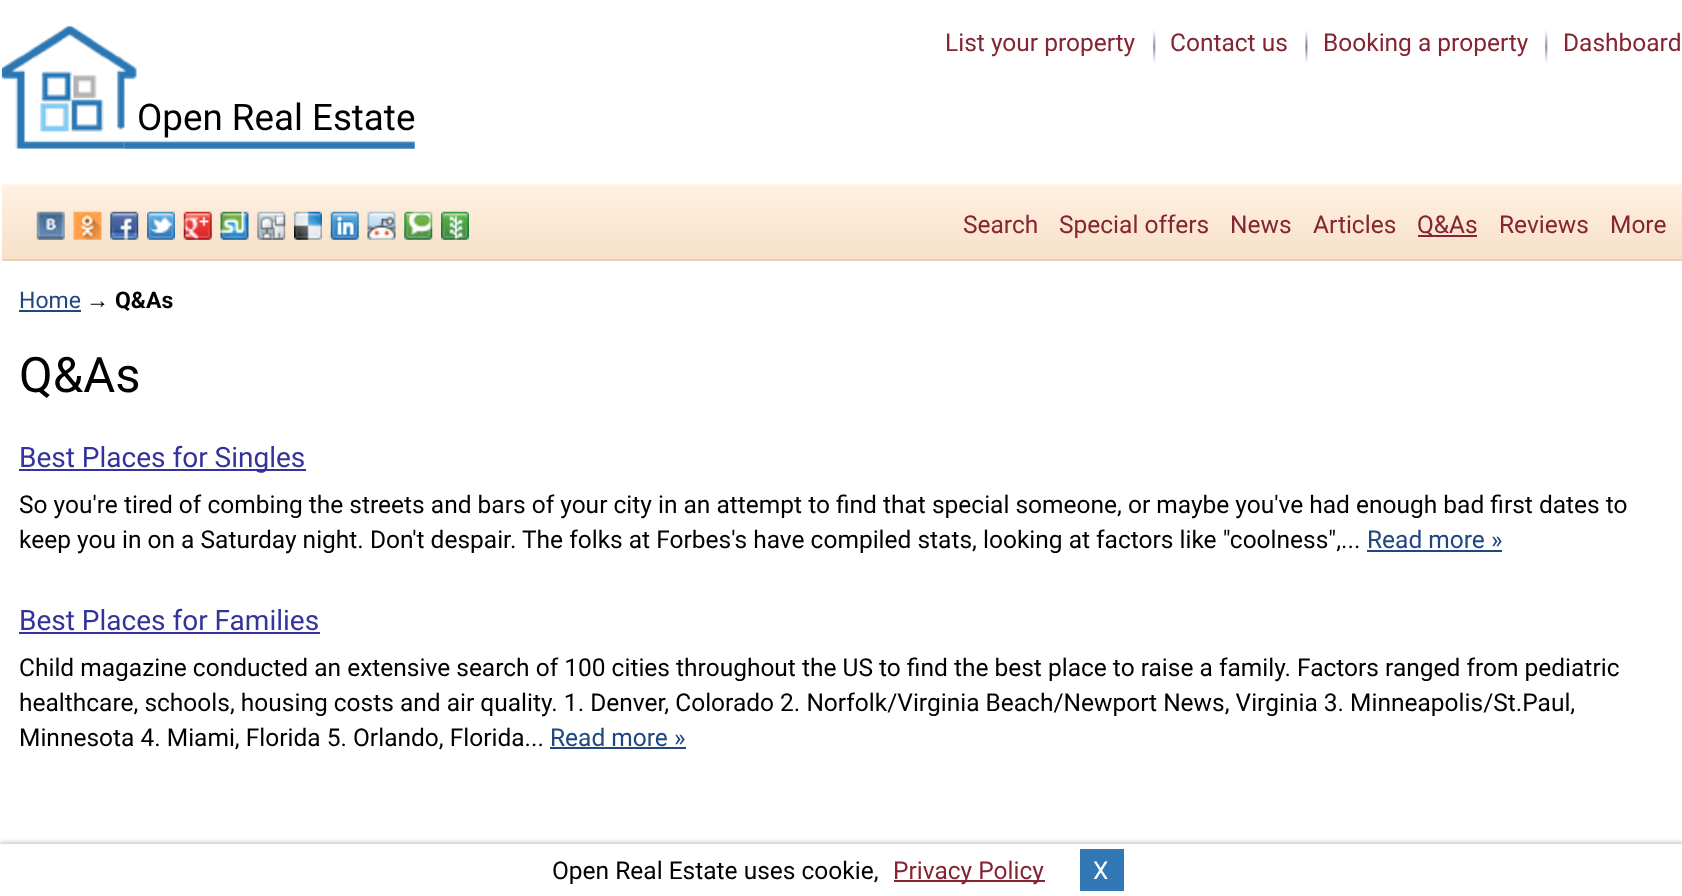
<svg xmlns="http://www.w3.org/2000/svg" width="1682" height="896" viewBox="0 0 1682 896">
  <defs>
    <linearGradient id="g1" gradientUnits="userSpaceOnUse" x1="842" y1="185" x2="842" y2="259"><stop offset="0" stop-color="#fff0e0"/><stop offset="1" stop-color="#f7e1c9"/></linearGradient>
    <filter id="blur1" x="-50%" y="-200%" width="200%" height="500%"><feGaussianBlur stdDeviation="2"/></filter>
  </defs>
  <rect width="100%" height="100%" fill="#ffffff"/>
  <text x="945" y="51" font-family="Roboto" font-size="24.5" fill="#852432">List your property</text>
  <image x="1152" y="30" width="4" height="33" href="img1.png"/>
  <text x="1170" y="51" font-family="Roboto" font-size="24.5" fill="#852432">Contact us</text>
  <image x="1305" y="30" width="3" height="33" href="img2.png"/>
  <text x="1323" y="51" font-family="Roboto" font-size="24.5" fill="#852432">Booking a property</text>
  <image x="1527" y="30" width="21" height="33" href="img3.png"/>
  <text x="1563" y="51" font-family="Roboto" font-size="24.5" fill="#852432">Dashboard</text>
  <image x="124" y="140" width="291" height="9" href="img4.png"/>
  <image x="1" y="26" width="136" height="123" href="img5.png"/>
  <text x="137" y="130" font-family="Roboto" font-size="36.75" fill="#000000">Open Real Estate</text>
  <rect x="2" y="186" width="1680" height="73" fill="url(#g1)"/>
  <rect x="2" y="184" width="1680" height="2" fill="#fef6ee"/>
  <rect x="2" y="259" width="1680" height="2" fill="#ebd0b4"/>
  <image x="36" y="211" width="29" height="29" href="img6.png"/>
  <image x="73" y="211" width="29" height="29" href="img7.png"/>
  <image x="110" y="211" width="29" height="29" href="img8.png"/>
  <image x="147" y="211" width="28" height="29" href="img9.png"/>
  <image x="183" y="211" width="29" height="29" href="img10.png"/>
  <image x="220" y="211" width="29" height="29" href="img11.png"/>
  <image x="257" y="211" width="29" height="29" href="img12.png"/>
  <image x="294" y="211" width="28" height="29" href="img13.png"/>
  <image x="330" y="211" width="29" height="29" href="img14.png"/>
  <image x="367" y="211" width="29" height="29" href="img15.png"/>
  <image x="404" y="211" width="29" height="29" href="img16.png"/>
  <image x="441" y="211" width="28" height="29" href="img17.png"/>
  <text x="963" y="233" font-family="Roboto" font-size="24.5" fill="#852432">Search</text>
  <text x="1059" y="233" font-family="Roboto" font-size="24.5" fill="#852432">Special offers</text>
  <text x="1230" y="233" font-family="Roboto" font-size="24.5" fill="#852432">News</text>
  <text x="1313" y="233" font-family="Roboto" font-size="24.5" fill="#852432">Articles</text>
  <rect x="1418" y="235" width="59" height="2" fill="#852432"/>
  <text x="1417" y="233" font-family="Roboto" font-size="24.5" fill="#852432">Q&amp;As</text>
  <text x="1499" y="233" font-family="Roboto" font-size="24.5" fill="#852432">Reviews</text>
  <text x="1610" y="233" font-family="Roboto" font-size="24.5" fill="#852432">More</text>
  <text x="19" y="308" font-family="Roboto" font-size="23" fill="#204782">Home</text>
  <rect x="19" y="310" width="62" height="2" fill="#204782"/>
  <text x="86" y="308" font-family="Liberation Sans" font-size="23" fill="#000000">→</text>
  <text x="115" y="308" font-family="Roboto" font-size="23" font-weight="bold" fill="#000000">Q&amp;As</text>
  <text x="19" y="392" font-family="Roboto" font-size="49" fill="#000000">Q&amp;As</text>
  <rect x="19" y="469" width="287" height="2" fill="#333399"/>
  <text x="19" y="467" font-family="Roboto" font-size="28" fill="#333399">Best Places for Singles</text>
  <text x="19" y="513" font-family="Roboto" font-size="24.5" fill="#000000">So you're tired of combing the streets and bars of your city in an attempt to find that special someone, or maybe you've had enough bad first dates to</text>
  <text x="19" y="548" font-family="Roboto" font-size="24.5" fill="#000000">keep you in on a Saturday night. Don't despair. The folks at Forbes's have compiled stats, looking at factors like "coolness",...</text>
  <text x="1367" y="548" font-family="Roboto" font-size="24.5" fill="#204782">Read more »</text>
  <rect x="1367" y="550" width="135" height="2" fill="#204782"/>
  <text x="19" y="630" font-family="Roboto" font-size="28" fill="#333399">Best Places for Families</text>
  <rect x="19" y="632" width="301" height="2" fill="#333399"/>
  <text x="19" y="676" font-family="Roboto" font-size="24.5" fill="#000000">Child magazine conducted an extensive search of 100 cities throughout the US to find the best place to raise a family. Factors ranged from pediatric</text>
  <text x="19" y="711" font-family="Roboto" font-size="24.5" fill="#000000">healthcare, schools, housing costs and air quality. 1. Denver, Colorado 2. Norfolk/Virginia Beach/Newport News, Virginia 3. Minneapolis/St.Paul,</text>
  <text x="19" y="746" font-family="Roboto" font-size="24.5" fill="#000000">Minnesota 4. Miami, Florida 5. Orlando, Florida...</text>
  <text x="550" y="746" font-family="Roboto" font-size="24.5" fill="#204782">Read more »</text>
  <rect x="550" y="747" width="136" height="2" fill="#204782"/>
  <rect x="0" y="842" width="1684" height="52" fill="#000000" fill-opacity="0.2" filter="url(#blur1)"/>
  <rect x="0" y="844" width="1682" height="52" fill="#ffffff"/>
  <text x="552" y="879" font-family="Roboto" font-size="24.5" fill="#000000">Open Real Estate uses cookie,</text>
  <rect x="894" y="880" width="151" height="2" fill="#852432"/>
  <text x="893" y="879" font-family="Roboto" font-size="24.5" fill="#852432">Privacy Policy</text>
  <rect x="1080" y="849" width="44" height="42" fill="#3278b4"/>
  <text x="1093" y="879" font-family="Roboto" font-size="24.5" fill="#ffffff">X</text>
</svg>
